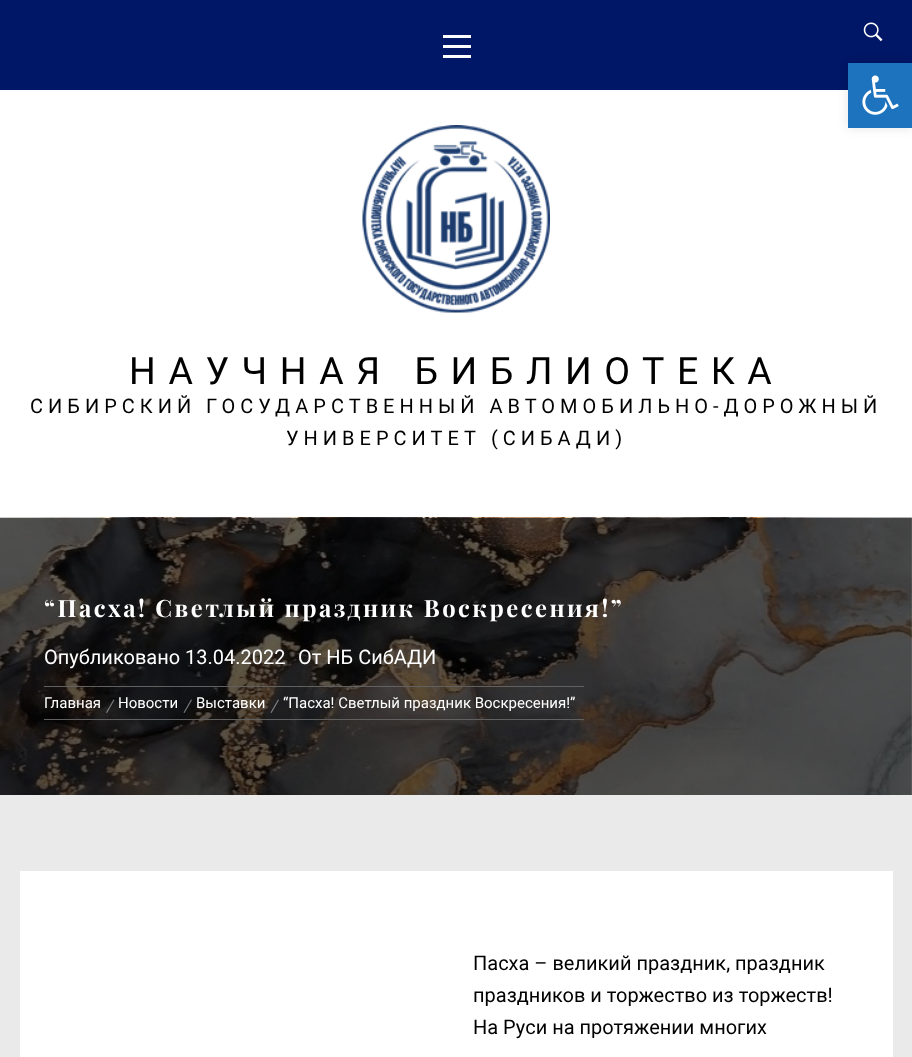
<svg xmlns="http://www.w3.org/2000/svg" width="912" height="1057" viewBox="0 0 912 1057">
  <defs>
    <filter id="blur1" x="-50%" y="-200%" width="200%" height="500%"><feGaussianBlur stdDeviation="6"/></filter>
  </defs>
  <rect width="100%" height="100%" fill="#ffffff"/>
  <rect x="0" y="0" width="912" height="90" fill="#001666"/>
  <rect x="848" y="63" width="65" height="65" fill="#000000" fill-opacity="0.1" filter="url(#blur1)"/>
  <rect x="848" y="63" width="64" height="65" fill="#1e73be"/>
  <image x="862" y="75" width="37" height="40" href="img1.png"/>
  <image x="863" y="22" width="20" height="20" href="img2.png"/>
  <rect x="443" y="45" width="28" height="3" fill="#ffffff"/>
  <rect x="443" y="35" width="28" height="3" fill="#ffffff"/>
  <rect x="443" y="55" width="28" height="3" fill="#ffffff"/>
  <image x="362" y="125" width="188" height="188" href="img3.png"/>
  <text x="129" y="384" font-family="Roboto" font-size="37.5" letter-spacing="12.5" fill="#000000">НАУЧНАЯ БИБЛИОТЕКА</text>
  <text x="30" y="413" font-family="Roboto" font-size="20" letter-spacing="5" fill="#000000">СИБИРСКИЙ ГОСУДАРСТВЕННЫЙ АВТОМОБИЛЬНО-ДОРОЖНЫЙ</text>
  <text x="286" y="445" font-family="Roboto" font-size="20" letter-spacing="5" fill="#000000">УНИВЕРСИТЕТ (СИБАДИ)</text>
  <image x="0" y="517" width="912" height="278" href="img4.png"/>
  <text x="44" y="617" font-family="Playfair Display" font-size="23.75" font-weight="bold" letter-spacing="2.5" fill="#ffffff">“Пасха! Светлый праздник Воскресения!”</text>
  <text x="44" y="664" font-family="Roboto" font-size="20" fill="#ffffff">Опубликовано 13.04.2022</text>
  <text x="298" y="664" font-family="Roboto" font-size="20" fill="#ffffff">От НБ СибАДИ</text>
  <rect x="44" y="686" width="540" height="1" fill="#616161"/>
  <rect x="44" y="719" width="540" height="1" fill="#616161"/>
  <text x="44" y="708" font-family="Roboto" font-size="15" fill="#ffffff">Главная</text>
  <path d="M113.5 699.5L114.5 700L107 713L106 712.5Z" fill="#ffffff" fill-opacity="0.45"/>
  <text x="118" y="708" font-family="Roboto" font-size="15" fill="#ffffff">Новости</text>
  <path d="M191 699.5L192 700L184.5 713L183.5 712.5Z" fill="#ffffff" fill-opacity="0.45"/>
  <text x="196" y="708" font-family="Roboto" font-size="15" fill="#ffffff">Выставки</text>
  <path d="M278 699.5L279 700L271.5 713L270.5 712.5Z" fill="#ffffff" fill-opacity="0.45"/>
  <text x="283" y="708" font-family="Roboto" font-size="15" fill="#ffffff">“Пасха! Светлый праздник Воскресения!”</text>
  <rect x="0" y="795" width="912" height="262" fill="#eaeaea"/>
  <rect x="20" y="871" width="873" height="186" fill="#ffffff"/>
  <text x="473" y="970" font-family="Roboto" font-size="20" fill="#000000">Пасха – великий праздник, праздник</text>
  <text x="473" y="1002" font-family="Roboto" font-size="20" fill="#000000">праздников и торжество из торжеств!</text>
  <text x="473" y="1034" font-family="Roboto" font-size="20" fill="#000000">На Руси на протяжении многих</text>
</svg>
